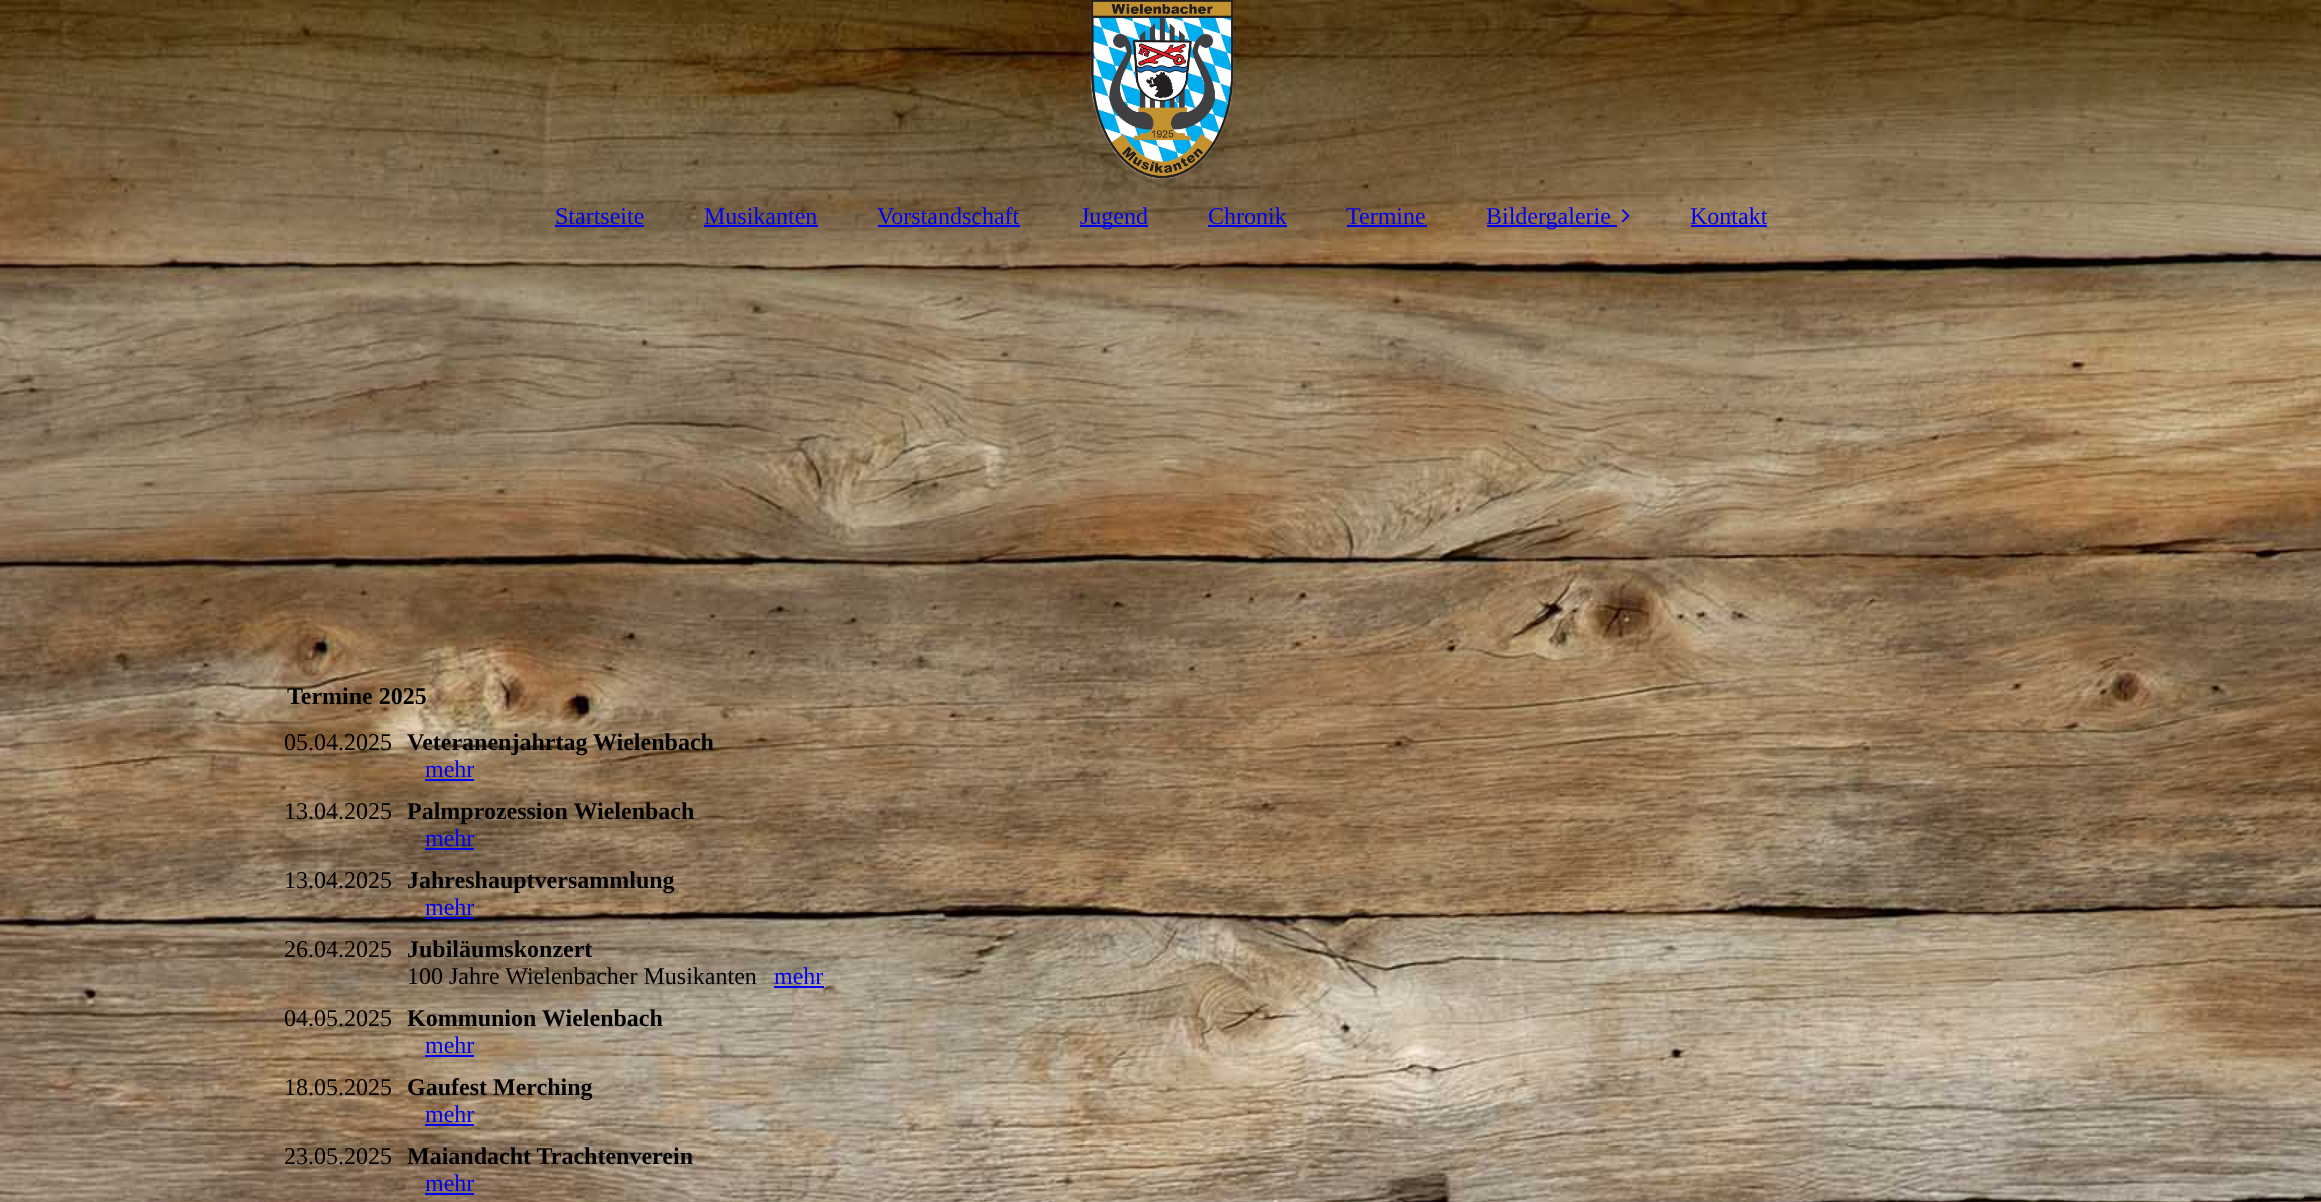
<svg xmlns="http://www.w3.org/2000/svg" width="2321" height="1202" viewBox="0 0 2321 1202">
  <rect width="100%" height="100%" fill="#ffffff"/>
  <image x="0" y="0" width="2321" height="1202" href="img1.png"/>
  <image x="1090" y="0" width="144" height="179" href="img2.png"/>
  <text x="555" y="224" font-family="Liberation Serif" font-size="24" fill="#0000ee">Startseite</text>
  <rect x="555" y="225" width="89" height="2" fill="#0000ee"/>
  <text x="704" y="224" font-family="Liberation Serif" font-size="24" fill="#0000ee">Musikanten</text>
  <rect x="704" y="225" width="114" height="2" fill="#0000ee"/>
  <text x="877" y="224" font-family="Liberation Serif" font-size="24" fill="#0000ee">Vorstandschaft</text>
  <rect x="878" y="225" width="142" height="2" fill="#0000ee"/>
  <rect x="1080" y="225" width="68" height="2" fill="#0000ee"/>
  <text x="1080" y="224" font-family="Liberation Serif" font-size="24" fill="#0000ee">Jugend</text>
  <text x="1208" y="224" font-family="Liberation Serif" font-size="24" fill="#0000ee">Chronik</text>
  <rect x="1208" y="225" width="79" height="2" fill="#0000ee"/>
  <text x="1346" y="224" font-family="Liberation Serif" font-size="24" fill="#0000ee">Termine</text>
  <rect x="1347" y="225" width="80" height="2" fill="#0000ee"/>
  <rect x="1487" y="225" width="130" height="2" fill="#0000ee"/>
  <text x="1486" y="224" font-family="Liberation Serif" font-size="24" fill="#0000ee">Bildergalerie</text>
  <image x="1621" y="209" width="9" height="14" href="img3.png"/>
  <text x="1690" y="224" font-family="Liberation Serif" font-size="24" fill="#0000ee">Kontakt</text>
  <rect x="1691" y="225" width="76" height="2" fill="#0000ee"/>
  <text x="287" y="704" font-family="Liberation Serif" font-size="24" font-weight="bold" fill="#000000">Termine 2025</text>
  <text x="284" y="750" font-family="Liberation Serif" font-size="24" fill="#000000">05.04.2025</text>
  <text x="407" y="750" font-family="Liberation Serif" font-size="24" font-weight="bold" fill="#000000">Veteranenjahrtag Wielenbach</text>
  <text x="425" y="777" font-family="Liberation Serif" font-size="24" fill="#0000ee">mehr</text>
  <rect x="425" y="779" width="49" height="2" fill="#0000ee"/>
  <text x="284" y="819" font-family="Liberation Serif" font-size="24" fill="#000000">13.04.2025</text>
  <text x="407" y="819" font-family="Liberation Serif" font-size="24" font-weight="bold" fill="#000000">Palmprozession Wielenbach</text>
  <text x="425" y="846" font-family="Liberation Serif" font-size="24" fill="#0000ee">mehr</text>
  <rect x="425" y="848" width="49" height="2" fill="#0000ee"/>
  <text x="284" y="888" font-family="Liberation Serif" font-size="24" fill="#000000">13.04.2025</text>
  <text x="407" y="888" font-family="Liberation Serif" font-size="24" font-weight="bold" fill="#000000">Jahreshauptversammlung</text>
  <text x="425" y="915" font-family="Liberation Serif" font-size="24" fill="#0000ee">mehr</text>
  <rect x="425" y="917" width="49" height="2" fill="#0000ee"/>
  <text x="284" y="957" font-family="Liberation Serif" font-size="24" fill="#000000">26.04.2025</text>
  <text x="407" y="957" font-family="Liberation Serif" font-size="24" font-weight="bold" fill="#000000">Jubiläumskonzert</text>
  <text x="407" y="984" font-family="Liberation Serif" font-size="24" fill="#000000">100 Jahre Wielenbacher Musikanten</text>
  <text x="774" y="984" font-family="Liberation Serif" font-size="24" fill="#0000ee">mehr</text>
  <rect x="774" y="986" width="50" height="2" fill="#0000ee"/>
  <text x="284" y="1026" font-family="Liberation Serif" font-size="24" fill="#000000">04.05.2025</text>
  <text x="407" y="1026" font-family="Liberation Serif" font-size="24" font-weight="bold" fill="#000000">Kommunion Wielenbach</text>
  <text x="425" y="1053" font-family="Liberation Serif" font-size="24" fill="#0000ee">mehr</text>
  <rect x="425" y="1055" width="49" height="2" fill="#0000ee"/>
  <text x="284" y="1095" font-family="Liberation Serif" font-size="24" fill="#000000">18.05.2025</text>
  <text x="407" y="1095" font-family="Liberation Serif" font-size="24" font-weight="bold" fill="#000000">Gaufest Merching</text>
  <text x="425" y="1122" font-family="Liberation Serif" font-size="24" fill="#0000ee">mehr</text>
  <rect x="425" y="1124" width="49" height="2" fill="#0000ee"/>
  <text x="284" y="1164" font-family="Liberation Serif" font-size="24" fill="#000000">23.05.2025</text>
  <text x="407" y="1164" font-family="Liberation Serif" font-size="24" font-weight="bold" fill="#000000">Maiandacht Trachtenverein</text>
  <text x="425" y="1191" font-family="Liberation Serif" font-size="24" fill="#0000ee">mehr</text>
  <rect x="425" y="1193" width="49" height="2" fill="#0000ee"/>
</svg>
